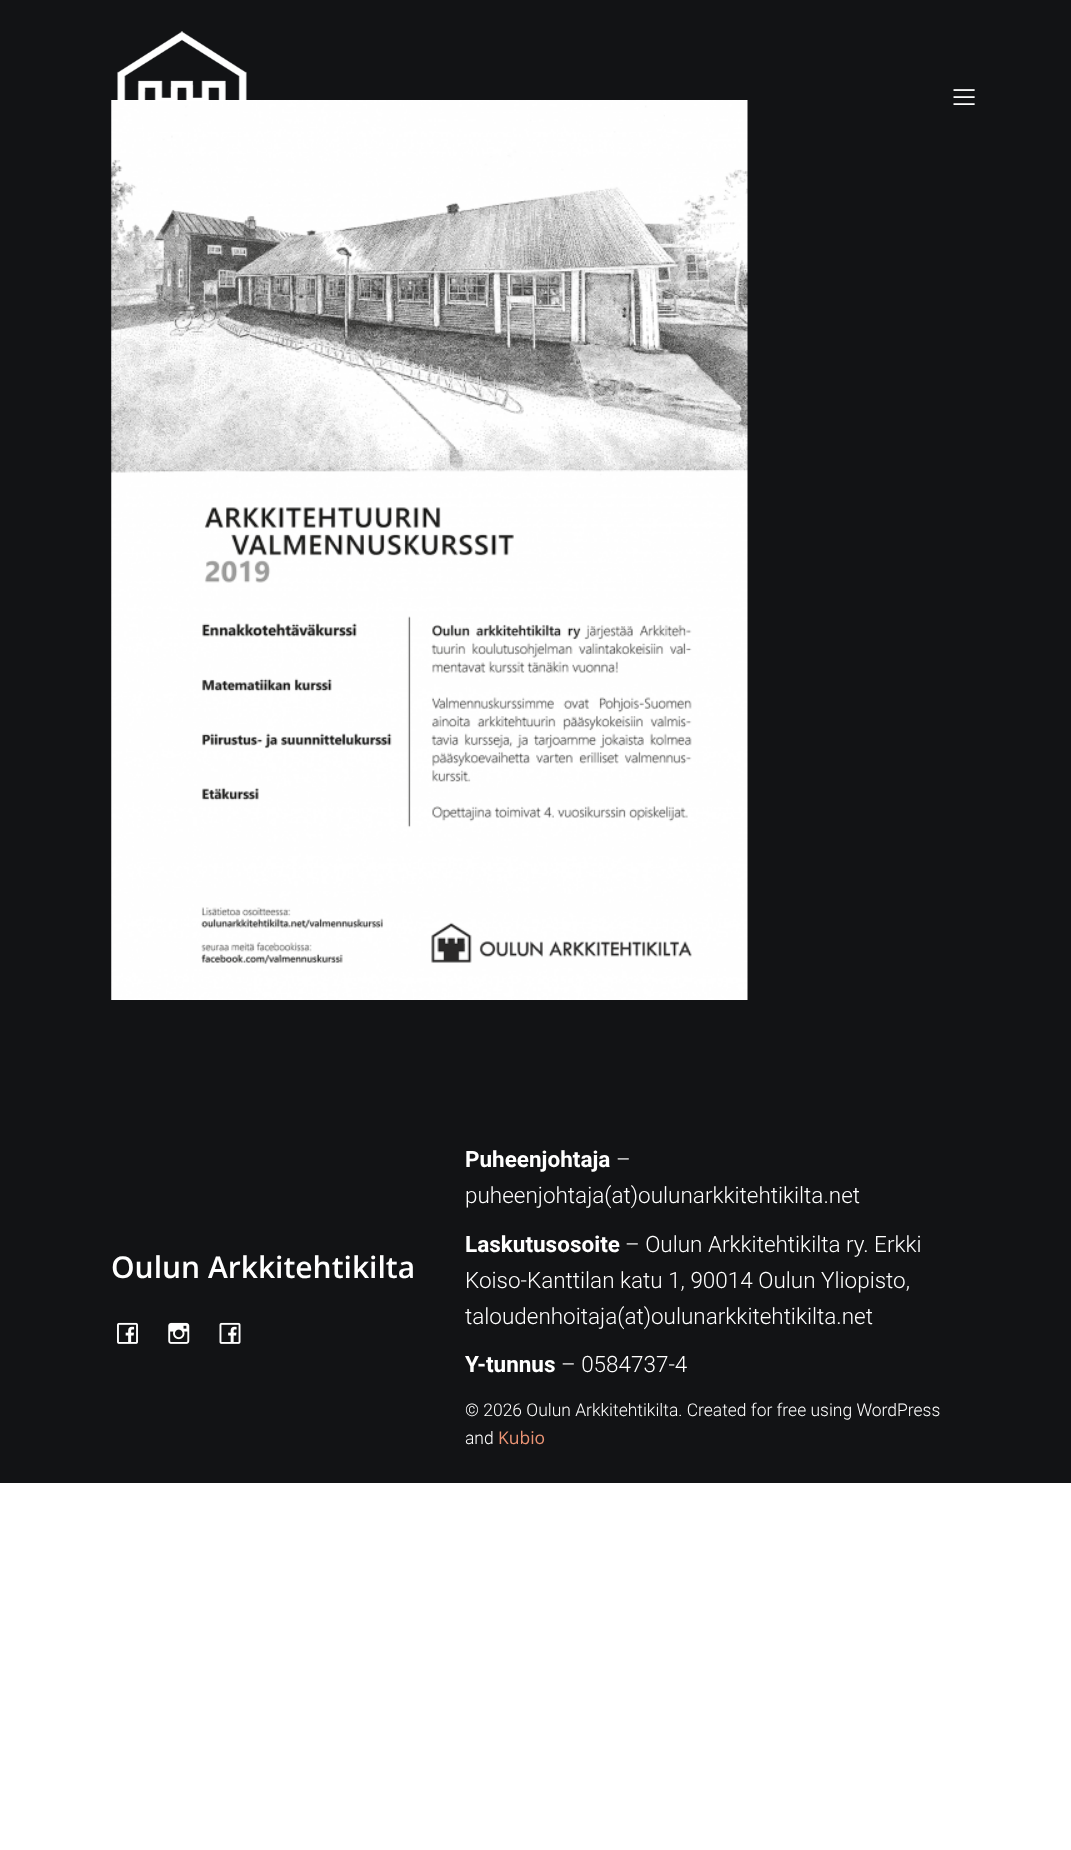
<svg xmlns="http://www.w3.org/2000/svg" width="1071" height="1850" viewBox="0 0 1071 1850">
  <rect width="100%" height="100%" fill="#ffffff"/>
  <rect x="0" y="0" width="1071" height="1483" fill="#121315"/>
  <image x="111" y="100" width="637" height="900" href="img1.png"/>
  <image x="117" y="31" width="130" height="70" href="img2.png"/>
  <image x="953" y="89" width="22" height="16" href="img3.png"/>
  <text x="111" y="1278" font-family="Open Sans" font-size="30" font-weight="600" fill="#ffffff">Oulun Arkkitehtikilta</text>
  <image x="117" y="1322" width="21" height="22" href="img4.png"/>
  <image x="168" y="1322" width="22" height="22" href="img5.png"/>
  <image x="219" y="1322" width="22" height="22" href="img6.png"/>
  <text x="465" y="1167" font-family="Roboto" font-size="22.5" font-weight="bold" fill="#ffffff">Puheenjohtaja</text>
  <text x="616" y="1167" font-family="Roboto" font-size="22.5" font-weight="300" fill="#ffffff">–</text>
  <text x="465" y="1203" font-family="Roboto" font-size="22.5" font-weight="300" fill="#ffffff">puheenjohtaja(at)oulunarkkitehtikilta.net</text>
  <text x="465" y="1252" font-family="Roboto" font-size="22.5" font-weight="bold" fill="#ffffff">Laskutusosoite</text>
  <text x="625" y="1252" font-family="Roboto" font-size="22.5" font-weight="300" fill="#ffffff">– Oulun Arkkitehtikilta ry. Erkki</text>
  <text x="465" y="1288" font-family="Roboto" font-size="22.5" font-weight="300" fill="#ffffff">Koiso-Kanttilan katu 1, 90014 Oulun Yliopisto,</text>
  <text x="465" y="1324" font-family="Roboto" font-size="22.5" font-weight="300" fill="#ffffff">taloudenhoitaja(at)oulunarkkitehtikilta.net</text>
  <text x="465" y="1372" font-family="Roboto" font-size="22.5" font-weight="bold" fill="#ffffff">Y-tunnus</text>
  <text x="561" y="1372" font-family="Roboto" font-size="22.5" font-weight="300" fill="#ffffff">– 0584737-4</text>
  <text x="465" y="1416" font-family="Roboto" font-size="17.5" font-weight="300" fill="#ffffff">© 2026 Oulun Arkkitehtikilta. Created for free using WordPress</text>
  <text x="465" y="1444" font-family="Roboto" font-size="17.5" font-weight="300" fill="#ffffff">and</text>
  <text x="498" y="1444" font-family="Open Sans" font-size="17.5" fill="#ea9374">Kubio</text>
</svg>
